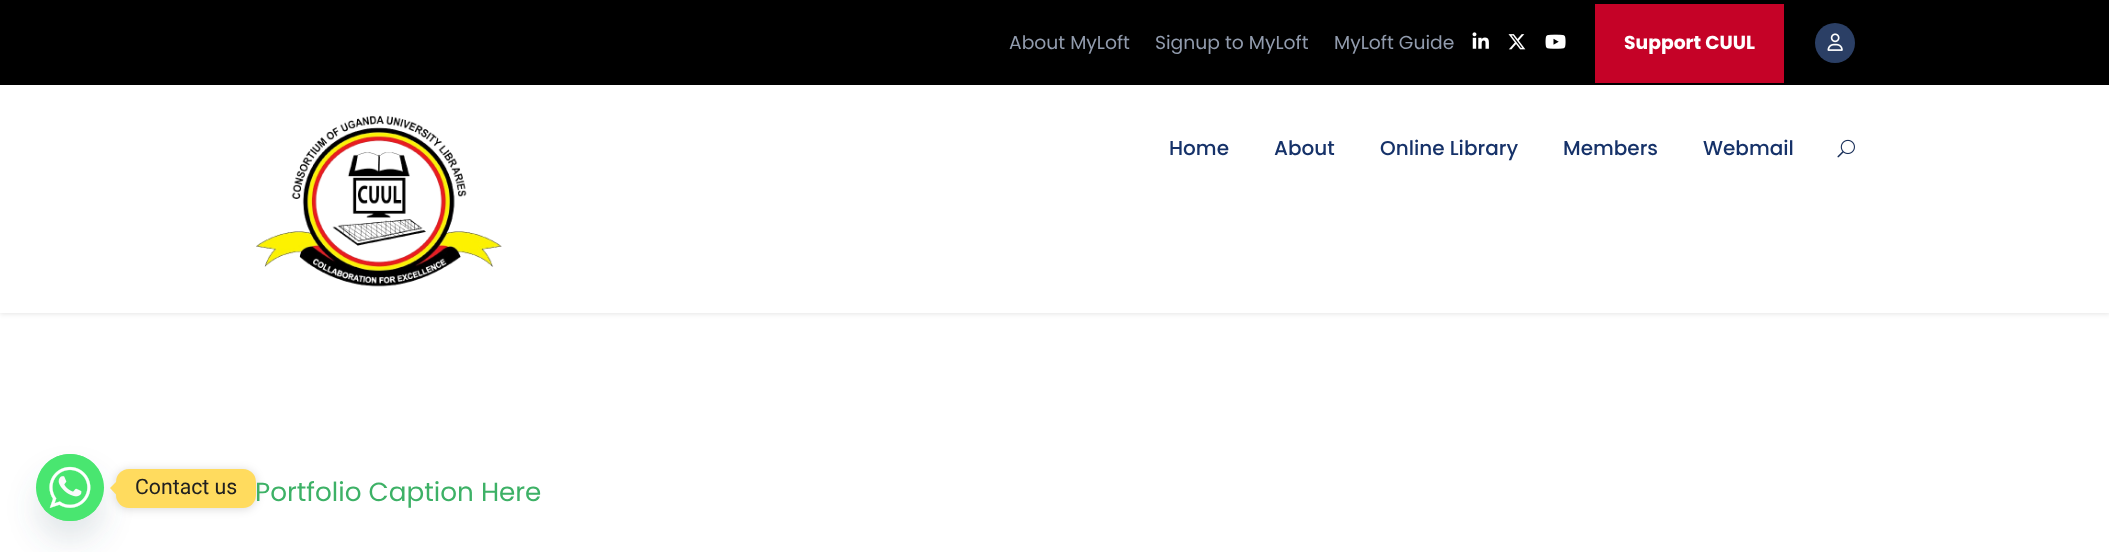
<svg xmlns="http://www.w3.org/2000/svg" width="2109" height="552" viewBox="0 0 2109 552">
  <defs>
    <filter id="blur1" x="-50%" y="-200%" width="200%" height="500%"><feGaussianBlur stdDeviation="15"/></filter>
    <filter id="blur2" x="-50%" y="-200%" width="200%" height="500%"><feGaussianBlur stdDeviation="5"/></filter>
    <filter id="blur3" x="-50%" y="-200%" width="200%" height="500%"><feGaussianBlur stdDeviation="2.5"/></filter>
  </defs>
  <rect width="100%" height="100%" fill="#ffffff"/>
  <rect x="36" y="474" width="68" height="67" rx="33.5" fill="#49687e" fill-opacity="0.16" filter="url(#blur1)"/>
  <rect x="36" y="454" width="68" height="67" rx="33.5" fill="#49e670"/>
  <image x="36" y="454" width="68" height="67" href="img1.png"/>
  <rect x="116" y="470" width="140" height="39" rx="13" fill="#000000" fill-opacity="0.15" filter="url(#blur2)"/>
  <rect x="116" y="469" width="140" height="39" rx="13" fill="#ffdb5e"/>
  <path d="M116 482V494.5L110 488Z" fill="#ffdb5e"/>
  <text x="135" y="494" font-family="Roboto" font-size="21.25" fill="#202020">Contact us</text>
  <rect x="0" y="0" width="2109" height="85" fill="#000000"/>
  <text x="1009" y="49" font-family="Poppins" font-size="18.75" fill="#919bad">About MyLoft</text>
  <text x="1155" y="49" font-family="Poppins" font-size="18.75" fill="#919bad">Signup to MyLoft</text>
  <text x="1334" y="49" font-family="Poppins" font-size="18.75" fill="#919bad">MyLoft Guide</text>
  <image x="1472" y="32" width="17" height="17" href="img2.png"/>
  <image x="1508" y="34" width="18" height="16" href="img3.png"/>
  <image x="1545" y="34" width="21" height="15" href="img4.png"/>
  <rect x="1595" y="4" width="189" height="79" fill="#c50227"/>
  <text x="1624" y="49" font-family="Poppins" font-size="18.75" font-weight="bold" fill="#ffffff">Support CUUL</text>
  <circle cx="1835" cy="43" r="20" fill="#2b3f65"/>
  <image x="1827" y="33" width="16" height="18" href="img5.png"/>
  <rect x="0" y="86" width="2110" height="228" fill="#000000" fill-opacity="0.1" filter="url(#blur3)"/>
  <rect x="0" y="85" width="2109" height="228" fill="#ffffff"/>
  <image x="256" y="115" width="246" height="172" href="img6.png"/>
  <text x="1169" y="155" font-family="Poppins" font-size="20" font-weight="500" fill="#163269">Home</text>
  <text x="1274" y="155" font-family="Poppins" font-size="20" font-weight="500" fill="#163269">About</text>
  <text x="1380" y="155" font-family="Poppins" font-size="20" font-weight="500" fill="#163269">Online Library</text>
  <text x="1563" y="155" font-family="Poppins" font-size="20" font-weight="500" fill="#163269">Members</text>
  <text x="1703" y="155" font-family="Poppins" font-size="20" font-weight="500" fill="#163269">Webmail</text>
  <image x="1837" y="139" width="18" height="19" href="img7.png"/>
  <text x="255" y="501" font-family="Poppins" font-size="26.25" fill="#3db166">Portfolio Caption Here</text>
</svg>
